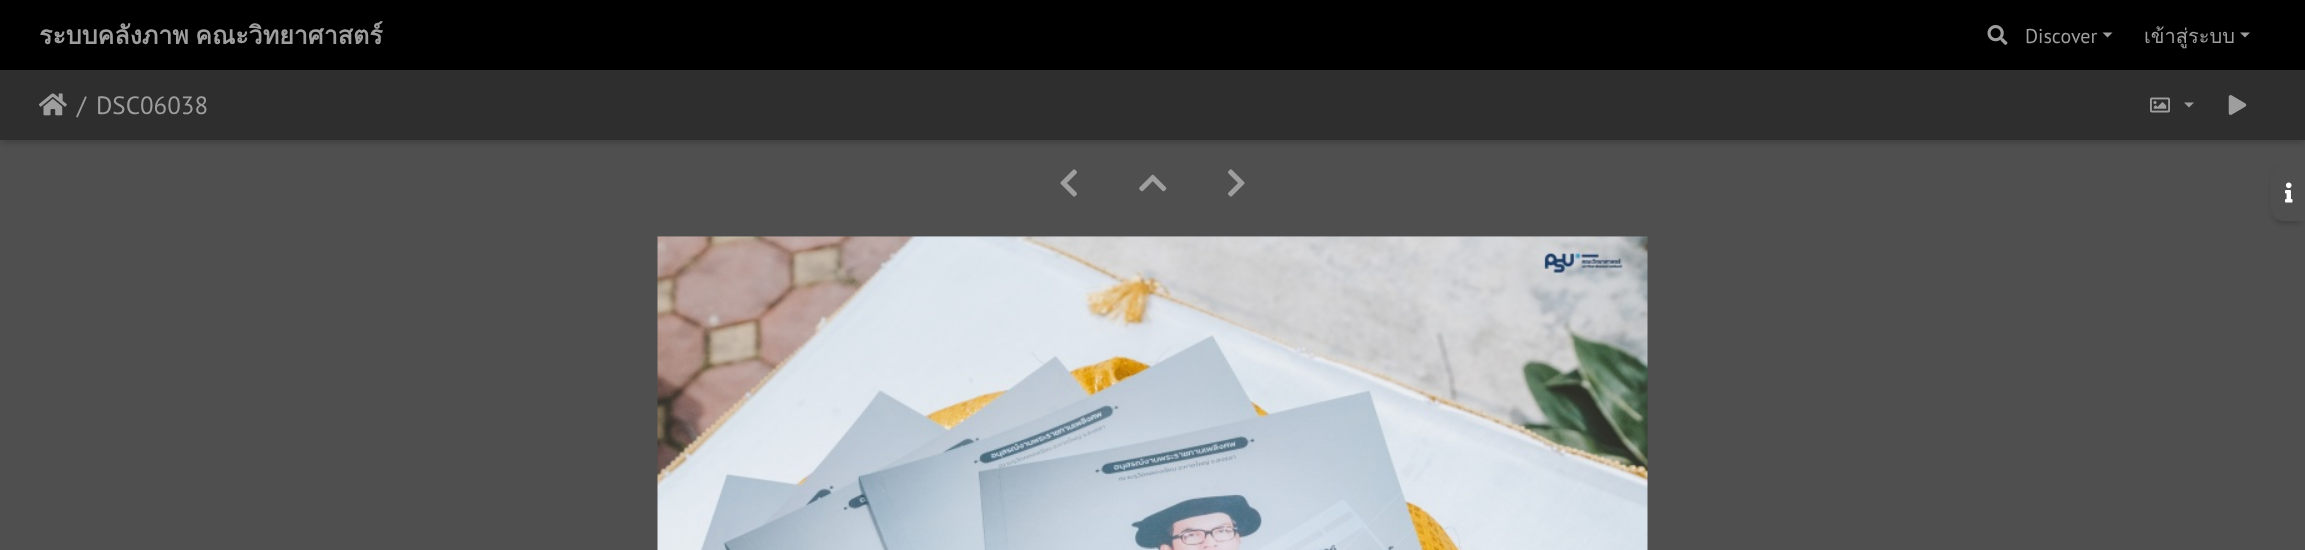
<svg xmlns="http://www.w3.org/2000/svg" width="2305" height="550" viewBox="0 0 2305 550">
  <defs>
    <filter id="blur1" x="-50%" y="-200%" width="200%" height="500%"><feGaussianBlur stdDeviation="3"/></filter>
  </defs>
  <rect width="100%" height="100%" fill="#4f4f4f"/>
  <rect x="1" y="75" width="2303" height="68" fill="#000000" fill-opacity="0.2" filter="url(#blur1)"/>
  <rect x="0" y="0" width="2305" height="70" fill="#000000"/>
  <text x="39" y="44" word-spacing="-2" font-family="Loma" font-size="25" font-weight="bold" fill="#9e9e9e">ระบบคลังภาพ คณะวิทยาศาสตร์</text>
  <image x="1987" y="25" width="21" height="20" href="img1.png"/>
  <text x="2025" y="43" font-family="PT Sans" font-size="20" fill="#9e9e9e">Discover</text>
  <path d="M2102.5 32.5H2112.5L2107.5 37.5Z" fill="#9e9e9e"/>
  <text x="2144" y="43" font-family="Loma" font-size="20" fill="#9e9e9e">เข้าสู่ระบบ</text>
  <path d="M2240 32.5H2250L2245 37.5Z" fill="#9e9e9e"/>
  <rect x="0" y="70" width="2305" height="70" fill="#2e2e2e"/>
  <image x="39" y="93" width="28" height="23" href="img2.png"/>
  <text x="77" y="114" font-family="PT Sans" font-size="25" fill="#9e9e9e">/</text>
  <text x="96" y="114" font-family="PT Sans" font-size="25" fill="#9e9e9e">DSC06038</text>
  <image x="2150" y="97" width="20" height="16" href="img3.png"/>
  <path d="M2184 102.5H2194L2189 107.5Z" fill="#9e9e9e"/>
  <image x="2228" y="95" width="19" height="20" href="img4.png"/>
  <image x="1060" y="169" width="17" height="28" href="img5.png"/>
  <image x="1139" y="174" width="28" height="18" href="img6.png"/>
  <image x="1228" y="169" width="17" height="28" href="img7.png"/>
  <rect x="2273" y="169" width="31" height="55" rx="11" fill="#000000" fill-opacity="0.2" filter="url(#blur1)"/>
  <path d="M2284 164H2305V221H2284C2277 221 2271 215 2271 208V177C2271 170 2277 164 2284 164Z" fill="#4f4f4f"/>
  <path d="M2284 164H2305V221H2284C2277 221 2271 216 2271 209V176C2271 169 2277 164 2284 164ZM2284 165H2305V220H2284C2278 220 2272 215 2272 209V176C2272 170 2278 165 2284 165Z" fill="#4f4f4f" fill-rule="evenodd"/>
  <image x="2285" y="182" width="8" height="21" href="img8.png"/>
  <image x="657" y="236" width="991" height="314" href="img9.png"/>
</svg>
